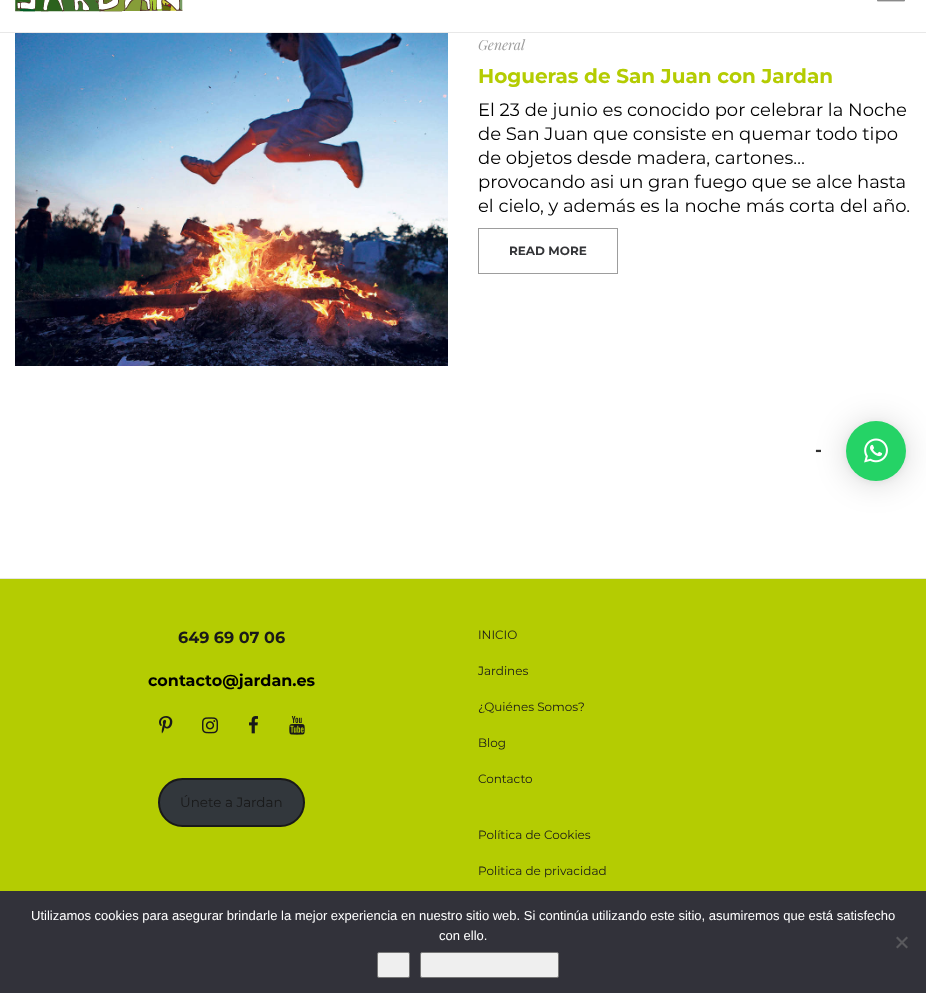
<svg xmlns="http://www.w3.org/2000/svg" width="926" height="993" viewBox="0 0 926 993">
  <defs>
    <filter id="blur1" x="-50%" y="-200%" width="200%" height="500%"><feGaussianBlur stdDeviation="16"/></filter>
    <filter id="blur2" x="-50%" y="-200%" width="200%" height="500%"><feGaussianBlur stdDeviation="3"/></filter>
  </defs>
  <rect width="100%" height="100%" fill="#ffffff"/>
  <image x="15" y="0" width="168" height="12" href="img1.png"/>
  <image x="877" y="0" width="28" height="2" href="img2.png"/>
  <rect x="0" y="32" width="926" height="1" fill="#e8e8e8"/>
  <image x="15" y="33" width="433" height="333" href="img3.png"/>
  <text x="478" y="50" font-family="Playfair Display" font-size="14" font-style="italic" fill="#9d9d9d">General</text>
  <text x="478" y="83" font-family="Montserrat" font-size="20" font-weight="bold" fill="#b4cc02">Hogueras de San Juan con Jardan</text>
  <text x="478" y="116" font-family="Montserrat" font-size="18" fill="#000000">El 23 de junio es conocido por celebrar la Noche</text>
  <text x="478" y="140" font-family="Montserrat" font-size="18" fill="#000000">de San Juan que consiste en quemar todo tipo</text>
  <text x="478" y="164" font-family="Montserrat" font-size="18" fill="#000000">de objetos desde madera, cartones…</text>
  <text x="478" y="188" font-family="Montserrat" font-size="18" fill="#000000">provocando asi un gran fuego que se alce hasta</text>
  <text x="478" y="212" font-family="Montserrat" font-size="18" fill="#000000">el cielo, y además es la noche más corta del año.</text>
  <rect x="478.5" y="228.5" width="139" height="45" fill="none" stroke="#9d9d9d"/>
  <text x="509" y="255" font-family="Montserrat" font-size="12" font-weight="bold" fill="#343538">READ MORE</text>
  <rect x="0" y="579" width="926" height="312" fill="#b4cc02"/>
  <rect x="0" y="578" width="926" height="1" fill="#e5e5e5"/>
  <text x="178" y="643" font-family="Montserrat" font-size="16" font-weight="bold" fill="#191919">649 69 07 06</text>
  <text x="148" y="686" font-family="Montserrat" font-size="16" font-weight="bold" fill="#000000">contacto@jardan.es</text>
  <image x="159" y="716" width="14" height="18" href="img4.png"/>
  <image x="202" y="717" width="16" height="17" href="img5.png"/>
  <image x="249" y="716" width="9" height="18" href="img6.png"/>
  <image x="289" y="716" width="16" height="19" href="img7.png"/>
  <rect x="159" y="779" width="145" height="47" rx="23.5" fill="#32373c" stroke="#191919" stroke-width="2"/>
  <text x="180" y="807" font-family="Montserrat" font-size="13.5" fill="#191919">Únete a Jardan</text>
  <text x="478" y="639" font-family="Montserrat" font-size="12" fill="#191919">INICIO</text>
  <text x="478" y="675" font-family="Montserrat" font-size="12" fill="#191919">Jardines</text>
  <text x="478" y="711" font-family="Montserrat" font-size="12" fill="#191919">¿Quiénes Somos?</text>
  <text x="478" y="747" font-family="Montserrat" font-size="12" fill="#191919">Blog</text>
  <text x="478" y="783" font-family="Montserrat" font-size="12" fill="#191919">Contacto</text>
  <text x="478" y="839" font-family="Montserrat" font-size="12" fill="#191919">Política de Cookies</text>
  <text x="478" y="875" font-family="Montserrat" font-size="12" fill="#191919">Politica de privacidad</text>
  <rect x="846" y="423" width="60" height="60" rx="30" fill="#000000" fill-opacity="0.16" filter="url(#blur1)"/>
  <rect x="846" y="422" width="60" height="60" rx="30" fill="#000000" fill-opacity="0.06" filter="url(#blur2)"/>
  <circle cx="876" cy="451" r="30" fill="#25d366"/>
  <text x="815" y="456" font-family="Montserrat" font-size="18" font-weight="bold" fill="#303030">-</text>
  <image x="864" y="438" width="24" height="25" href="img8.png"/>
  <rect x="0" y="891" width="926" height="102" fill="#32323a"/>
  <text x="31" y="920" font-family="Liberation Sans" font-size="13" fill="#ffffff">Utilizamos cookies para asegurar brindarle la mejor experiencia en nuestro sitio web. Si continúa utilizando este sitio, asumiremos que está satisfecho</text>
  <text x="439" y="940" font-family="Liberation Sans" font-size="13" fill="#ffffff">con ello.</text>
  <path d="M906.5 936.5L908 938L897.5 948.5L896 947Z" fill="#59595d"/>
  <path d="M896 938L897.5 936.5L908 947L906.5 948.5Z" fill="#59595d"/>
  <rect x="377.5" y="952.5" width="32" height="25" rx="1.5" fill="#efefef" stroke="#767676"/>
  <rect x="420.5" y="952.5" width="138" height="25" rx="1.5" fill="#efefef" stroke="#767676"/>
</svg>
